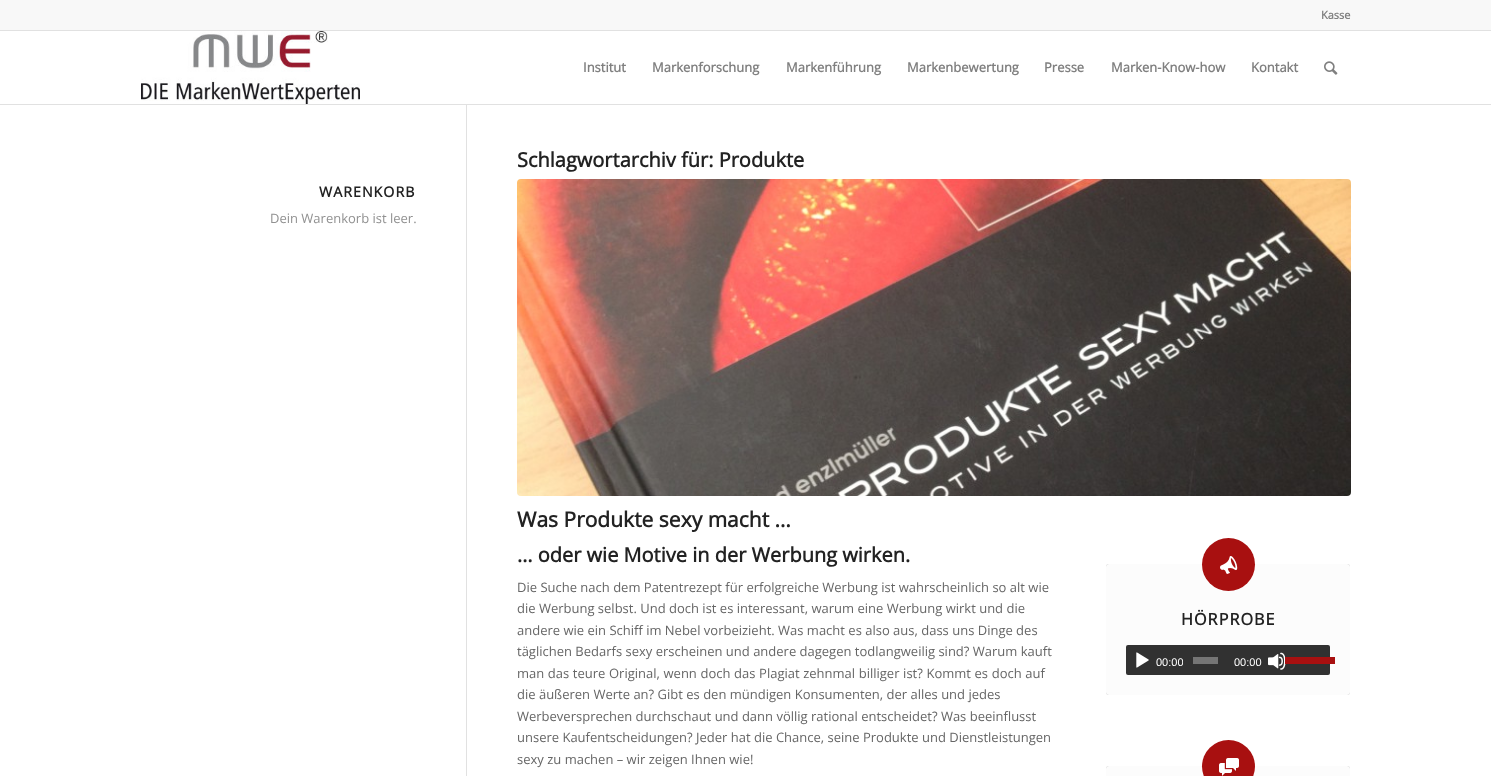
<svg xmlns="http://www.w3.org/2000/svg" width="1491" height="776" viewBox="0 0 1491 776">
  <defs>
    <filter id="blur1" x="-50%" y="-200%" width="200%" height="500%"><feGaussianBlur stdDeviation="0.5"/></filter>
    <clipPath id="clip1"><rect x="1150" y="645" width="33" height="30"/></clipPath>
  </defs>
  <rect width="100%" height="100%" fill="#ffffff"/>
  <rect x="0" y="0" width="1491" height="30" fill="#f8f8f8"/>
  <rect x="0" y="30" width="1491" height="1" fill="#e1e1e1"/>
  <text x="1321" y="19" font-family="Open Sans" font-size="11" font-weight="bold" fill="#808080">Kasse</text>
  <rect x="0" y="104" width="1491" height="1" fill="#e1e1e1"/>
  <image x="141" y="31" width="219" height="73" href="img1.png"/>
  <text x="583" y="72" font-family="Open Sans" font-size="13" font-weight="bold" fill="#808080">Institut</text>
  <text x="652" y="72" font-family="Open Sans" font-size="13" font-weight="bold" fill="#808080">Markenforschung</text>
  <text x="786" y="72" font-family="Open Sans" font-size="13" font-weight="bold" fill="#808080">Markenführung</text>
  <text x="907" y="72" font-family="Open Sans" font-size="13" font-weight="bold" fill="#808080">Markenbewertung</text>
  <text x="1044" y="72" font-family="Open Sans" font-size="13" font-weight="bold" fill="#808080">Presse</text>
  <text x="1111" y="72" font-family="Open Sans" font-size="13" font-weight="bold" fill="#808080">Marken-Know-how</text>
  <text x="1251" y="72" font-family="Open Sans" font-size="13" font-weight="bold" fill="#808080">Kontakt</text>
  <image x="1324" y="61" width="14" height="14" href="img2.png"/>
  <text x="319" y="197" font-family="Open Sans" font-size="14.25" font-weight="bold" letter-spacing="1" fill="#222222">WARENKORB</text>
  <text x="270" y="223" font-family="Open Sans" font-size="13" fill="#919191">Dein Warenkorb ist leer.</text>
  <rect x="466" y="105" width="1" height="671" fill="#e1e1e1"/>
  <text x="517" y="167" font-family="Open Sans" font-size="20" font-weight="bold" fill="#222222">Schlagwortarchiv für: Produkte</text>
  <image x="517" y="179" width="834" height="317" href="img3.png"/>
  <text x="517" y="527" font-family="Open Sans" font-size="21" font-weight="bold" fill="#222222">Was Produkte sexy macht …</text>
  <text x="517" y="562" font-family="Open Sans" font-size="20" font-weight="bold" fill="#222222">… oder wie Motive in der Werbung wirken.</text>
  <text x="517" y="592" font-family="Open Sans" font-size="13" fill="#666666">Die Suche nach dem Patentrezept für erfolgreiche Werbung ist wahrscheinlich so alt wie</text>
  <text x="517" y="613" font-family="Open Sans" font-size="13" fill="#666666">die Werbung selbst. Und doch ist es interessant, warum eine Werbung wirkt und die</text>
  <text x="517" y="635" font-family="Open Sans" font-size="13" fill="#666666">andere wie ein Schiff im Nebel vorbeizieht. Was macht es also aus, dass uns Dinge des</text>
  <text x="517" y="656" font-family="Open Sans" font-size="13" fill="#666666">täglichen Bedarfs sexy erscheinen und andere dagegen todlangweilig sind? Warum kauft</text>
  <text x="517" y="678" word-spacing="0.25" font-family="Open Sans" font-size="13" fill="#666666">man das teure Original, wenn doch das Plagiat zehnmal billiger ist? Kommt es doch auf</text>
  <text x="517" y="699" font-family="Open Sans" font-size="13" fill="#666666">die äußeren Werte an? Gibt es den mündigen Konsumenten, der alles und jedes</text>
  <text x="517" y="721" font-family="Open Sans" font-size="13" fill="#666666">Werbeversprechen durchschaut und dann völlig rational entscheidet? Was beeinflusst</text>
  <text x="517" y="742" font-family="Open Sans" font-size="13" fill="#666666">unsere Kaufentscheidungen? Jeder hat die Chance, seine Produkte und Dienstleistungen</text>
  <text x="517" y="764" font-family="Open Sans" font-size="13" fill="#666666">sexy zu machen – wir zeigen Ihnen wie!</text>
  <rect x="1106" y="564" width="244" height="131" rx="3" fill="#000000" fill-opacity="0.3" filter="url(#blur1)"/>
  <rect x="1106" y="564" width="244" height="131" rx="3" fill="#fcfcfc"/>
  <circle cx="1228.5" cy="564.5" r="26.5" fill="#a81010"/>
  <image x="1220" y="556" width="18" height="18" href="img4.png"/>
  <text x="1181" y="625" font-family="Open Sans" font-size="16.25" font-weight="bold" letter-spacing="1" fill="#222222">HÖRPROBE</text>
  <rect x="1126" y="645" width="204" height="30" rx="2" fill="#313131"/>
  <image x="1136" y="652" width="13" height="16" href="img5.png"/>
  <g clip-path="url(#clip1)">
    <text x="1156" y="666" font-family="Liberation Sans" font-size="11" fill="#ffffff">00:00</text>
  </g>
  <rect x="1193" y="657" width="25" height="7" fill="#757575"/>
  <text x="1234" y="666" font-family="Liberation Sans" font-size="11" fill="#ffffff">00:00</text>
  <image x="1268" y="652" width="18" height="18" href="img6.png"/>
  <rect x="1285" y="657" width="50" height="7" fill="#a81010"/>
  <rect x="1106" y="766" width="244" height="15" rx="3" fill="#000000" fill-opacity="0.3" filter="url(#blur1)"/>
  <rect x="1106" y="766" width="244" height="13" rx="3" fill="#fcfcfc"/>
  <circle cx="1228.5" cy="766.5" r="26.5" fill="#a81010"/>
  <image x="1219" y="758" width="20" height="18" href="img7.png"/>
</svg>
